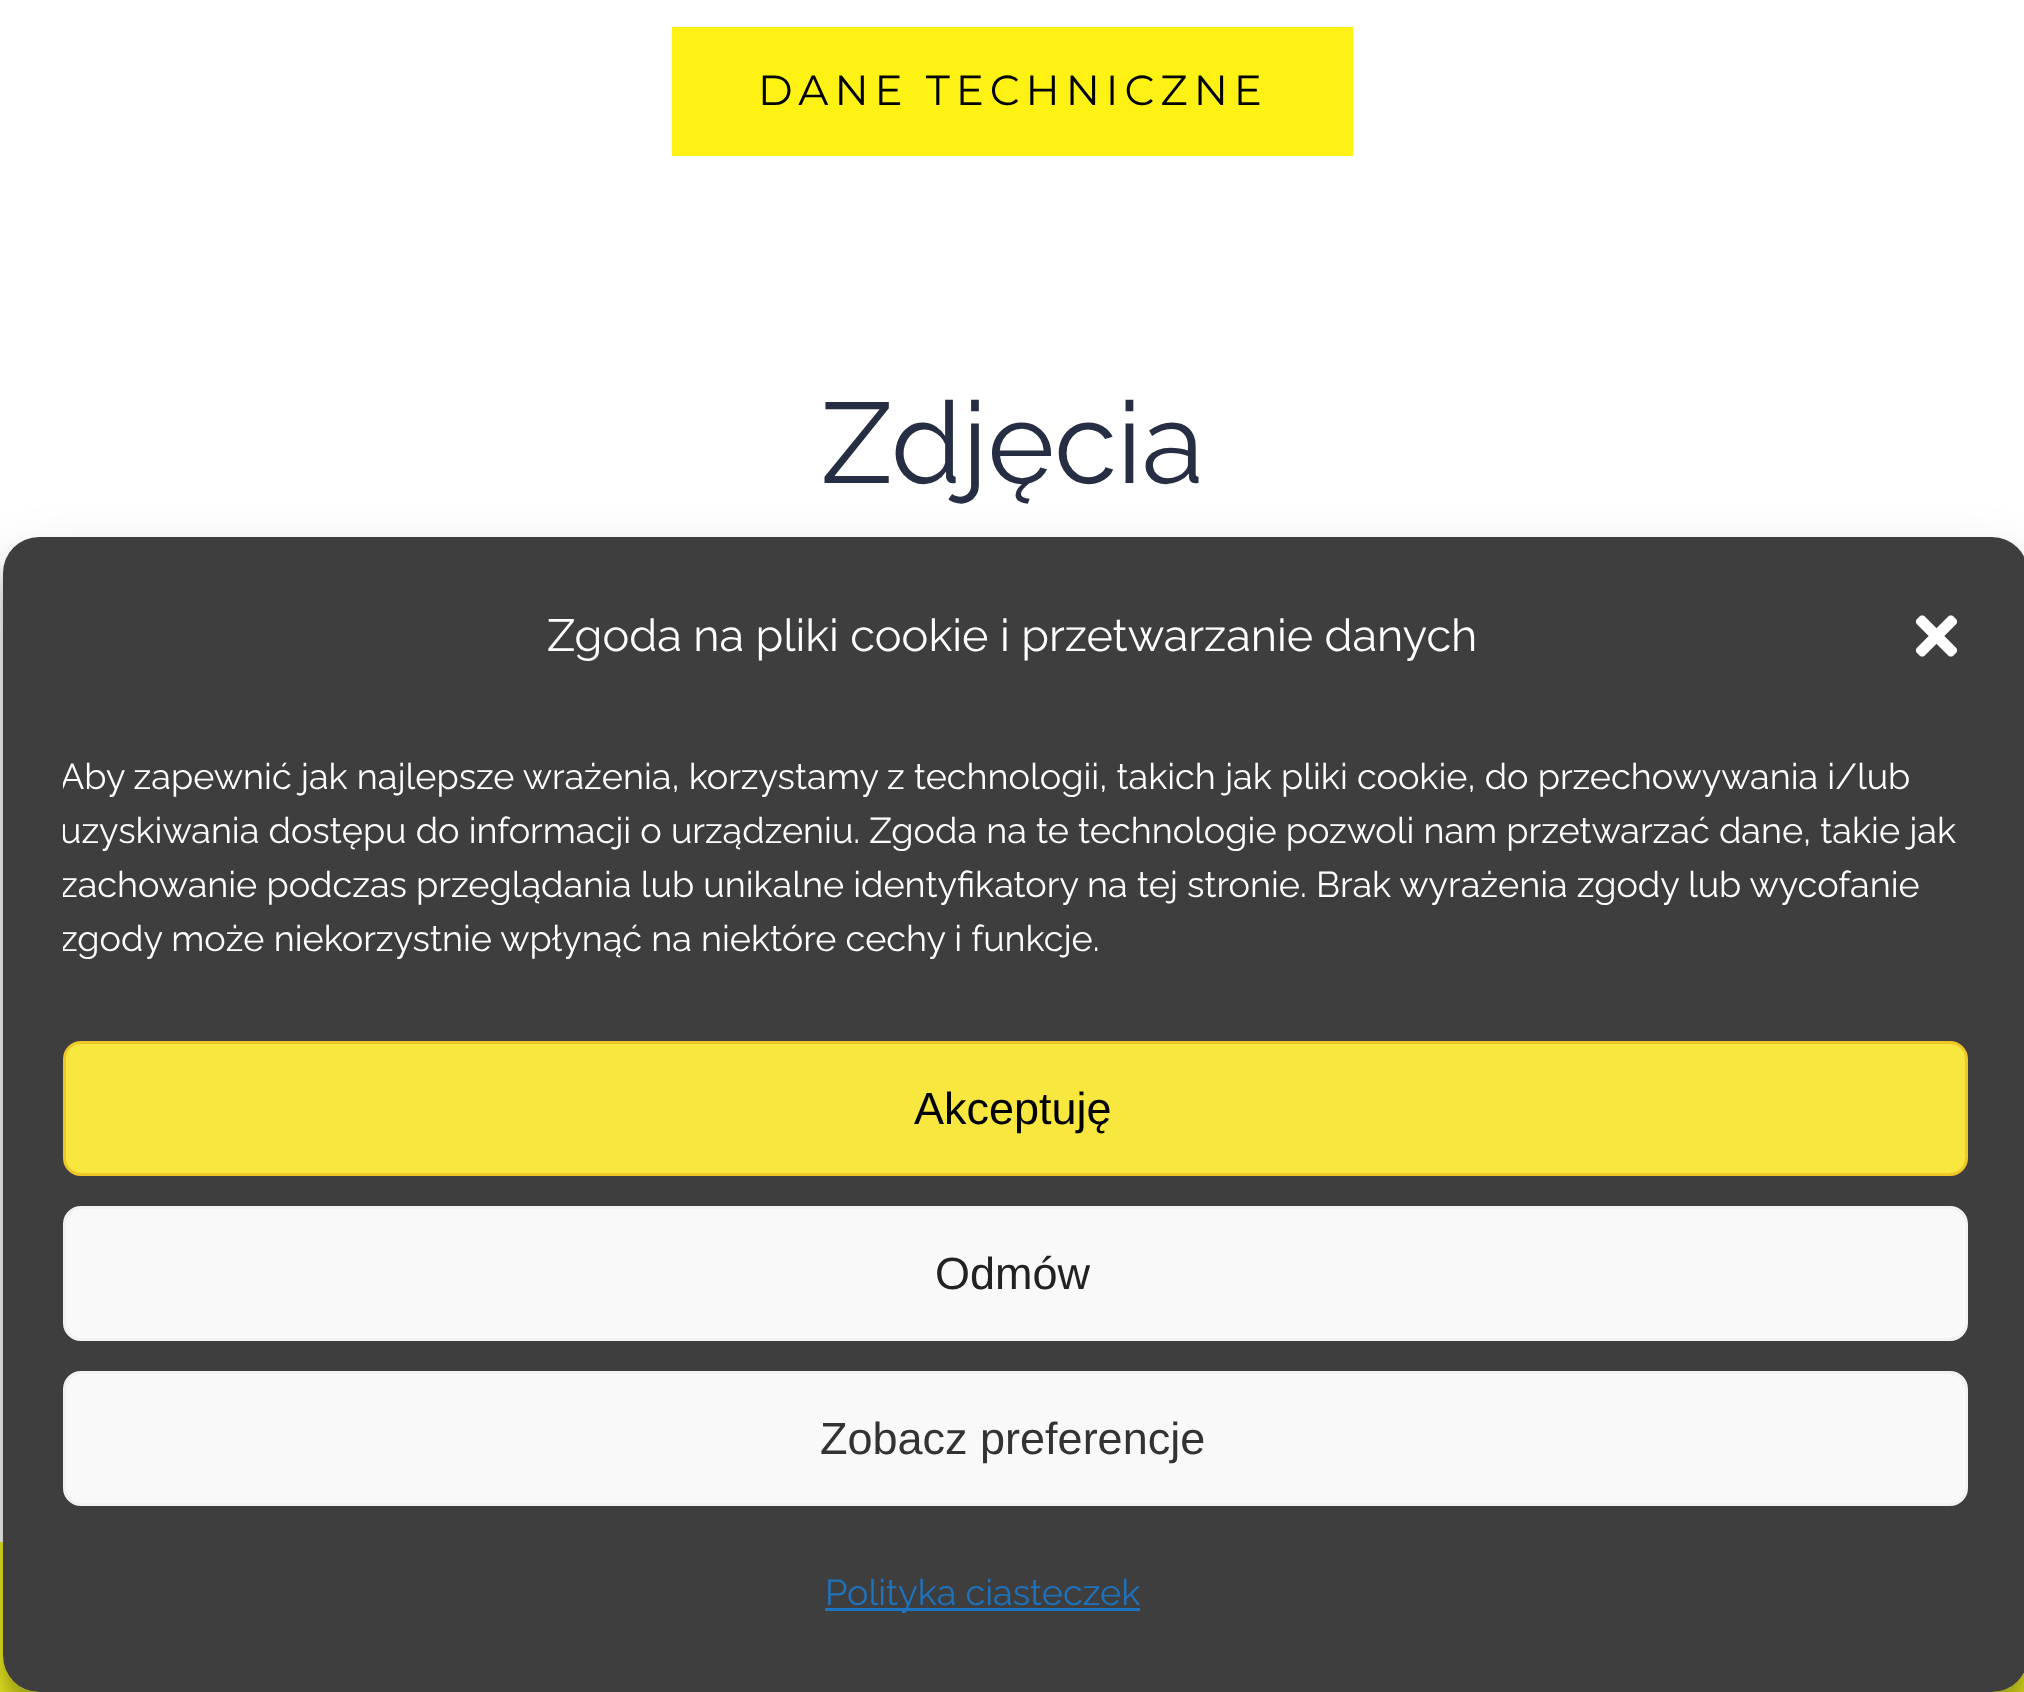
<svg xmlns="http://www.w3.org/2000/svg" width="2024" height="1692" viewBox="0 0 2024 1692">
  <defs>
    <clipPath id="clip1"><path d="M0 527H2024V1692H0ZM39 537H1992C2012 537 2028 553 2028 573V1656C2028 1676 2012 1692 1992 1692H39C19 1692 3 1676 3 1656V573C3 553 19 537 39 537Z" clip-rule="evenodd"/></clipPath>
    <filter id="blur1" x="-50%" y="-200%" width="200%" height="500%"><feGaussianBlur stdDeviation="9"/></filter>
    <clipPath id="clip2"><path d="M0 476H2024V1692H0ZM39 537H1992C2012 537 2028 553 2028 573V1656C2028 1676 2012 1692 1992 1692H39C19 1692 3 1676 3 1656V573C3 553 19 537 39 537Z" clip-rule="evenodd"/></clipPath>
    <filter id="blur2" x="-50%" y="-200%" width="200%" height="500%"><feGaussianBlur stdDeviation="30"/></filter>
    <clipPath id="clip3"><rect x="63" y="750" width="1905" height="231"/></clipPath>
  </defs>
  <rect width="100%" height="100%" fill="#ffffff"/>
  <rect x="672" y="27" width="681" height="129" fill="#fdf214"/>
  <text x="758" y="105" font-family="Montserrat" font-size="42" letter-spacing="6" fill="#000000">DANE TECHNICZNE</text>
  <text x="821" y="483" font-family="Raleway" font-size="114" fill="#262e44">Zdjęcia</text>
  <rect x="0" y="1542" width="2024" height="150" fill="#eeee22"/>
  <g clip-path="url(#clip1)">
    <rect x="3" y="555" width="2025" height="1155" rx="36" fill="#000000" fill-opacity="0.23" filter="url(#blur1)"/>
  </g>
  <g clip-path="url(#clip2)">
    <rect x="3" y="567" width="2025" height="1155" rx="36" fill="#000000" fill-opacity="0.19" filter="url(#blur2)"/>
  </g>
  <rect x="3" y="537" width="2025" height="1155" rx="36" fill="#3f3e3e"/>
  <text x="547" y="651" font-family="Raleway" font-size="45" fill="#ffffff">Zgoda na pliki cookie i przetwarzanie danych</text>
  <image x="1915" y="615" width="43" height="42" href="img1.png"/>
  <g clip-path="url(#clip3)">
    <text x="60" y="789" font-family="Raleway" font-size="36" fill="#ffffff">Aby zapewnić jak najlepsze wrażenia, korzystamy z technologii, takich jak pliki cookie, do przechowywania i/lub</text>
    <text x="60" y="843" font-family="Raleway" font-size="36" fill="#ffffff">uzyskiwania dostępu do informacji o urządzeniu. Zgoda na te technologie pozwoli nam przetwarzać dane, takie jak</text>
    <text x="60" y="897" font-family="Raleway" font-size="36" fill="#ffffff">zachowanie podczas przeglądania lub unikalne identyfikatory na tej stronie. Brak wyrażenia zgody lub wycofanie</text>
    <text x="60" y="951" font-family="Raleway" font-size="36" fill="#ffffff">zgody może niekorzystnie wpłynąć na niektóre cechy i funkcje.</text>
  </g>
  <rect x="64.5" y="1042.5" width="1902" height="132" rx="16.5" fill="#f7e73f" stroke="#efc828" stroke-width="3"/>
  <text x="914" y="1124" font-family="Liberation Sans" font-size="45" fill="#000000">Akceptuję</text>
  <rect x="64.5" y="1207.5" width="1902" height="132" rx="16.5" fill="#f9f9f9" stroke="#f2f2f2" stroke-width="3"/>
  <text x="935" y="1289" font-family="Liberation Sans" font-size="45" fill="#222222">Odmów</text>
  <rect x="64.5" y="1372.5" width="1902" height="132" rx="16.5" fill="#f9f9f9" stroke="#f2f2f2" stroke-width="3"/>
  <text x="820" y="1454" font-family="Liberation Sans" font-size="45" fill="#333333">Zobacz preferencje</text>
  <rect x="825" y="1608" width="315" height="3" fill="#1e73be"/>
  <text x="825" y="1605" font-family="Raleway" font-size="36" fill="#1e73be">Polityka ciasteczek</text>
</svg>
